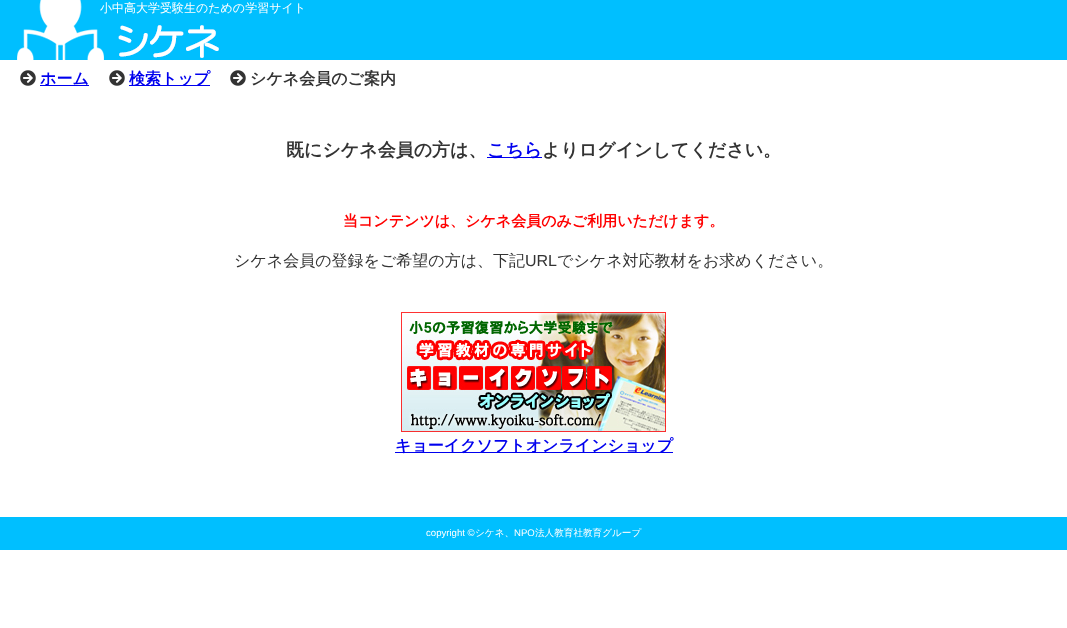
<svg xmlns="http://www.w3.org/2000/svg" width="1067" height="628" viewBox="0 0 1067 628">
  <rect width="100%" height="100%" fill="#ffffff"/>
  <rect x="0" y="0" width="1067" height="60" fill="#00bfff"/>
  <image x="17" y="0" width="202" height="60" href="img1.png"/>
  <text x="100" y="12" font-family="WenQuanYi Zen Hei" font-size="12" font-weight="500" fill="#ffffff">小中高大学受験生のための学習サイト</text>
  <image x="20" y="70" width="16" height="16" href="img2.png"/>
  <rect x="40" y="85" width="49" height="1" fill="#0000ee"/>
  <text x="40" y="84" font-family="WenQuanYi Zen Hei" font-size="16" font-weight="bold" fill="#0000ee">ホーム</text>
  <image x="109" y="70" width="16" height="16" href="img2.png"/>
  <rect x="129" y="85" width="81" height="1" fill="#0000ee"/>
  <text x="129" y="84" font-family="WenQuanYi Zen Hei" font-size="16" font-weight="bold" fill="#0000ee">検索トップ</text>
  <image x="230" y="70" width="16" height="16" href="img2.png"/>
  <text x="250" y="84" font-family="WenQuanYi Zen Hei" font-size="16" font-weight="bold" fill="#333333">シケネ会員のご案内</text>
  <text x="286" y="156" font-family="WenQuanYi Zen Hei" font-size="18" font-weight="bold" fill="#333333">既にシケネ会員の方は、</text>
  <rect x="487" y="157" width="55" height="1" fill="#0000ee"/>
  <text x="487" y="156" font-family="WenQuanYi Zen Hei" font-size="18" font-weight="bold" fill="#0000ee">こちら</text>
  <text x="542" y="156" font-family="WenQuanYi Zen Hei" font-size="18" font-weight="bold" fill="#333333">よりログインしてください。</text>
  <text x="343" y="226" font-family="WenQuanYi Zen Hei" font-size="15" font-weight="bold" fill="#ff0000">当コンテンツは、シケネ会員のみご利用いただけます。</text>
  <text x="234" y="266" font-family="WenQuanYi Zen Hei" font-size="16" font-weight="500" fill="#333333">シケネ会員の登録をご希望の方は、下記</text>
  <text x="525" y="266" font-family="Liberation Sans" font-size="16" fill="#333333">URL</text>
  <text x="557" y="266" font-family="WenQuanYi Zen Hei" font-size="16" font-weight="500" fill="#333333">でシケネ対応教材をお求めください。</text>
  <image x="401" y="312" width="265" height="120" href="img3.png"/>
  <rect x="395" y="452" width="278" height="1" fill="#0000ee"/>
  <text x="395" y="451" font-family="WenQuanYi Zen Hei" font-size="16" font-weight="bold" fill="#0000ee">キョーイクソフトオンラインショップ</text>
  <rect x="0" y="517" width="1067" height="33" fill="#00bfff"/>
  <text x="426" y="536" font-family="Liberation Sans" font-size="9.6" fill="#ffffff">copyright ©</text>
  <text x="475" y="536" font-family="WenQuanYi Zen Hei" font-size="9.6" font-weight="500" fill="#ffffff">シケネ、</text>
  <text x="514" y="536" font-family="Liberation Sans" font-size="9.6" fill="#ffffff">NPO</text>
  <text x="535" y="536" font-family="WenQuanYi Zen Hei" font-size="9.6" font-weight="500" fill="#ffffff">法人教育社教育グループ</text>
</svg>
